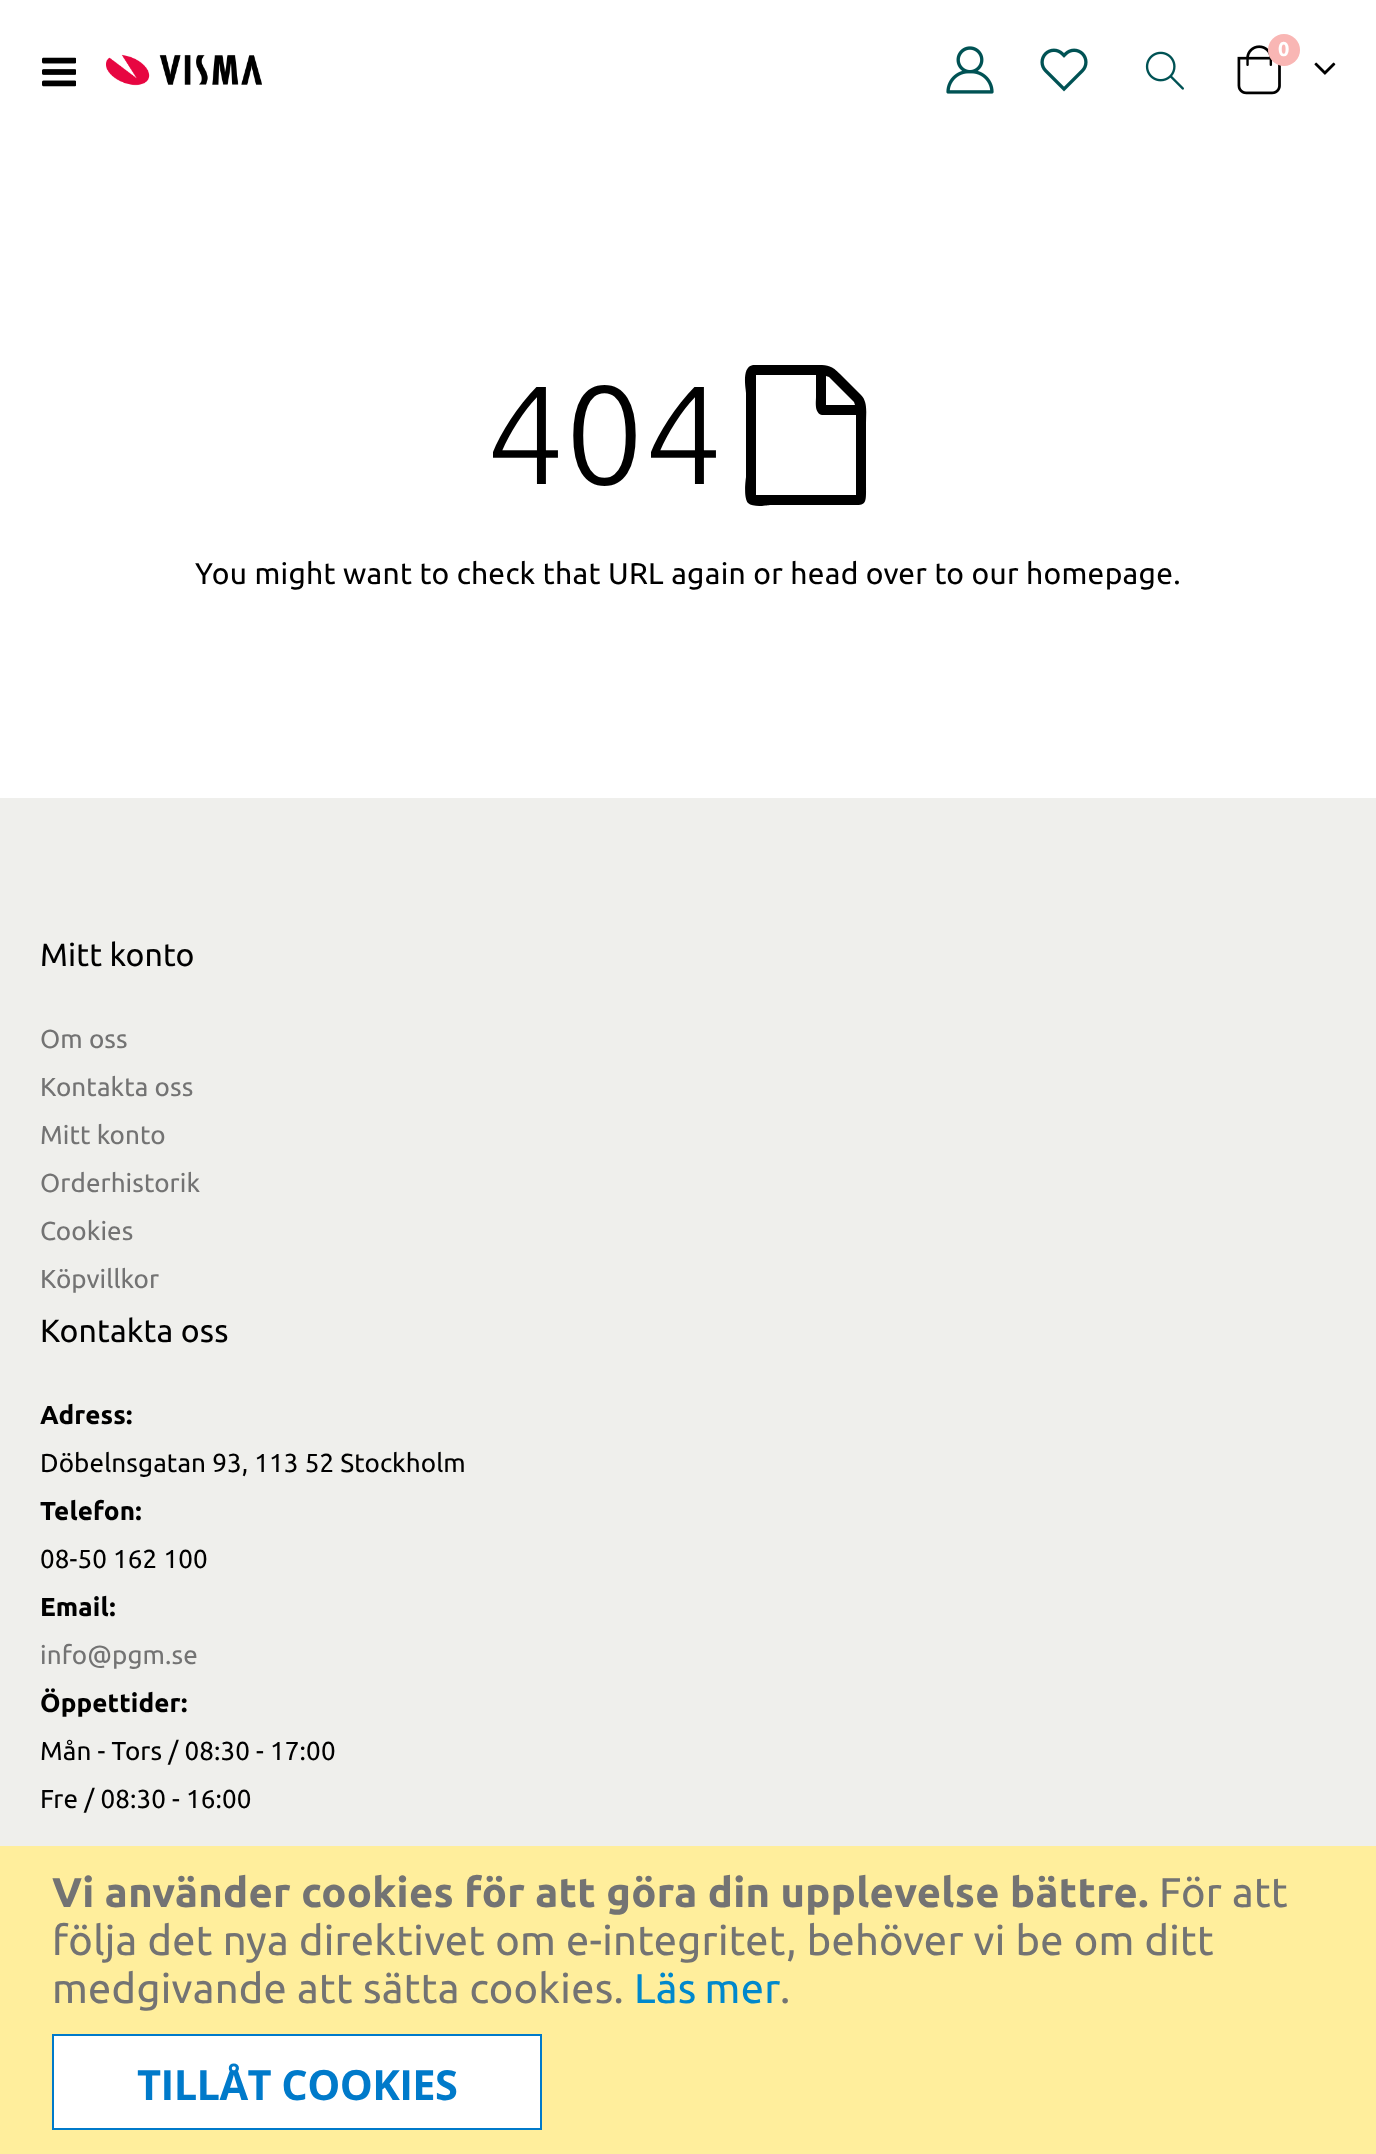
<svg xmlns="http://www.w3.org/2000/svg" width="1376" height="2154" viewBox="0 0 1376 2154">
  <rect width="100%" height="100%" fill="#ffffff"/>
  <image x="946" y="46" width="48" height="48" href="img1.png"/>
  <image x="1040" y="48" width="48" height="44" href="img2.png"/>
  <image x="1145" y="51" width="39" height="39" href="img3.png"/>
  <image x="1237" y="45" width="44" height="50" href="img4.png"/>
  <circle cx="1284" cy="50" r="16" fill="#f9b6b4"/>
  <text x="1278" y="56" font-family="Ubuntu" font-size="20" font-weight="bold" fill="#ffffff">0</text>
  <image x="1314" y="62" width="22" height="13" href="img5.png"/>
  <image x="42" y="57" width="34" height="30" href="img6.png"/>
  <image x="106" y="54" width="156" height="32" href="img7.png"/>
  <text x="486" y="484" font-family="Ubuntu" font-size="140" font-weight="300" fill="#000000">404</text>
  <path d="M861 395C868 402 866 413 866 423V482C866 508 868 505 841 505H771C769 505 753 508 748 503C743 497 746 478 746 477V393C746 389 741 367 753 365H812C827 365 830 364 840 374ZM826 376V405H855L854 402L829 377ZM856 495V415H822C814 413 816 402 816 397V375H756V495Z" fill="#000000"/>
  <text x="195" y="584" font-family="Ubuntu" font-size="30" letter-spacing="0.28" fill="#000000">You might want to check that URL again or head over to our homepage.</text>
  <rect x="0" y="798" width="1376" height="1048" fill="#efefec"/>
  <text x="40" y="966" font-family="Ubuntu" font-size="32" letter-spacing="0.1" fill="#000000">Mitt konto</text>
  <text x="40" y="1048" font-family="Ubuntu" font-size="26" letter-spacing="0.1" fill="#737373">Om oss</text>
  <text x="40" y="1096" font-family="Ubuntu" font-size="26" letter-spacing="0.1" fill="#737373">Kontakta oss</text>
  <text x="40" y="1144" font-family="Ubuntu" font-size="26" letter-spacing="0.1" fill="#737373">Mitt konto</text>
  <text x="40" y="1192" font-family="Ubuntu" font-size="26" letter-spacing="0.1" fill="#737373">Orderhistorik</text>
  <text x="40" y="1240" font-family="Ubuntu" font-size="26" letter-spacing="0.1" fill="#737373">Cookies</text>
  <text x="40" y="1288" font-family="Ubuntu" font-size="26" letter-spacing="0.1" fill="#737373">Köpvillkor</text>
  <text x="40" y="1342" font-family="Ubuntu" font-size="32" letter-spacing="0.1" fill="#000000">Kontakta oss</text>
  <text x="40" y="1424" font-family="Ubuntu" font-size="26" font-weight="bold" letter-spacing="0.1" fill="#000000">Adress:</text>
  <text x="40" y="1472" font-family="Ubuntu" font-size="26" letter-spacing="0.1" fill="#000000">Döbelnsgatan 93, 113 52 Stockholm</text>
  <text x="40" y="1520" font-family="Ubuntu" font-size="26" font-weight="bold" letter-spacing="0.1" fill="#000000">Telefon:</text>
  <text x="40" y="1568" font-family="Ubuntu" font-size="26" letter-spacing="0.1" fill="#000000">08-50 162 100</text>
  <text x="40" y="1616" font-family="Ubuntu" font-size="26" font-weight="bold" letter-spacing="0.1" fill="#000000">Email:</text>
  <text x="40" y="1664" font-family="Ubuntu" font-size="26" letter-spacing="0.1" fill="#737373">info@pgm.se</text>
  <text x="40" y="1712" font-family="Ubuntu" font-size="26" font-weight="bold" letter-spacing="0.1" fill="#000000">Öppettider:</text>
  <text x="40" y="1760" font-family="Ubuntu" font-size="26" letter-spacing="0.1" fill="#000000">Mån - Tors / 08:30 - 17:00</text>
  <text x="40" y="1808" font-family="Ubuntu" font-size="26" letter-spacing="0.1" fill="#000000">Fre / 08:30 - 16:00</text>
  <rect x="0" y="1846" width="1376" height="308" fill="#ffee9c"/>
  <text x="52" y="1907" font-family="Ubuntu" font-size="41.6" font-weight="bold" letter-spacing="0.28" fill="#737373">Vi använder cookies för att göra din upplevelse bättre.</text>
  <text x="1159" y="1907" font-family="Ubuntu" font-size="41.6" letter-spacing="0.28" fill="#737373">För att</text>
  <text x="52" y="1955" font-family="Ubuntu" font-size="41.6" letter-spacing="0.28" fill="#737373">följa det nya direktivet om e-integritet, behöver vi be om ditt</text>
  <text x="52" y="2003" font-family="Ubuntu" font-size="41.6" letter-spacing="0.28" fill="#737373">medgivande att sätta cookies.</text>
  <text x="634" y="2003" word-spacing="-2" font-family="Ubuntu" font-size="41.6" letter-spacing="0.28" fill="#0088cc">Läs mer</text>
  <text x="780" y="2003" font-family="Ubuntu" font-size="41.6" letter-spacing="0.28" fill="#737373">.</text>
  <rect x="53" y="2035" width="488" height="94" fill="#ffffff" stroke="#007aca" stroke-width="2"/>
  <text x="137" y="2100" font-family="Open Sans" font-size="41.6" font-weight="bold" letter-spacing="-0.6" fill="#007aca">TILLÅT COOKIES</text>
</svg>
